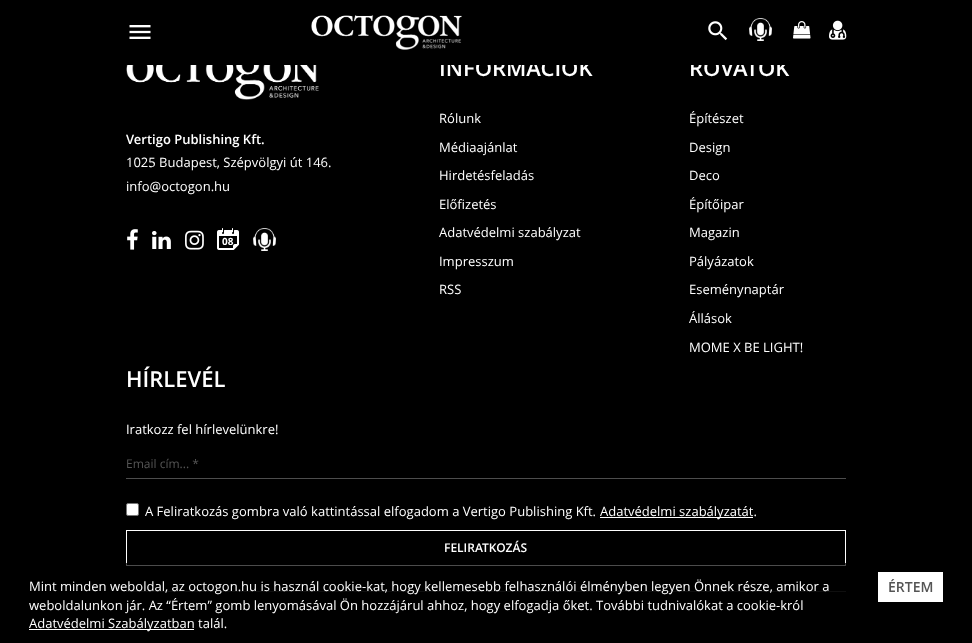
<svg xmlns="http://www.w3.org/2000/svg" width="972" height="643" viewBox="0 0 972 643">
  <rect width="100%" height="100%" fill="#000000"/>
  <text x="439" y="76" font-family="Open Sans" font-size="22" font-weight="600" fill="#ffffff">INFORMÁCIÓK</text>
  <text x="689" y="76" font-family="Open Sans" font-size="22" font-weight="600" fill="#ffffff">ROVATOK</text>
  <rect x="440" y="55" width="349" height="10" fill="#000000"/>
  <image x="129" y="25" width="22" height="14" href="img1.png"/>
  <image x="311" y="15" width="151" height="35" href="img2.png"/>
  <image x="708" y="21" width="20" height="20" href="img3.png"/>
  <image x="749" y="18" width="23" height="23" href="img4.png"/>
  <image x="793" y="21" width="18" height="18" href="img5.png"/>
  <image x="829" y="20" width="18" height="20" href="img6.png"/>
  <image x="126" y="65" width="193" height="35" href="img7.png"/>
  <text x="126" y="144" font-family="Open Sans" font-size="13" font-weight="600" fill="#ffffff">Vertigo Publishing Kft.</text>
  <text x="126" y="167" font-family="Open Sans" font-size="13" fill="#ffffff">1025 Budapest, Szépvölgyi út 146.</text>
  <text x="126" y="191" font-family="Open Sans" font-size="13" fill="#ffffff">info@octogon.hu</text>
  <image x="127" y="229" width="11" height="21" href="img8.png"/>
  <image x="152" y="231" width="19" height="18" href="img9.png"/>
  <image x="185" y="230" width="19" height="20" href="img10.png"/>
  <image x="217" y="228" width="22" height="22" href="img11.png"/>
  <text x="222" y="245" font-family="Open Sans" font-size="10" font-weight="bold" fill="#ffffff">08</text>
  <image x="253" y="228" width="23" height="23" href="img4.png"/>
  <text x="439" y="123" font-family="Open Sans" font-size="13" fill="#ffffff">Rólunk</text>
  <text x="439" y="152" font-family="Open Sans" font-size="13" fill="#ffffff">Médiaajánlat</text>
  <text x="439" y="180" font-family="Open Sans" font-size="13" fill="#ffffff">Hirdetésfeladás</text>
  <text x="439" y="209" font-family="Open Sans" font-size="13" fill="#ffffff">Előfizetés</text>
  <text x="439" y="237" font-family="Open Sans" font-size="13" fill="#ffffff">Adatvédelmi szabályzat</text>
  <text x="439" y="266" font-family="Open Sans" font-size="13" fill="#ffffff">Impresszum</text>
  <text x="439" y="294" font-family="Open Sans" font-size="13" fill="#ffffff">RSS</text>
  <text x="689" y="123" font-family="Open Sans" font-size="13" fill="#ffffff">Építészet</text>
  <text x="689" y="152" font-family="Open Sans" font-size="13" fill="#ffffff">Design</text>
  <text x="689" y="180" font-family="Open Sans" font-size="13" fill="#ffffff">Deco</text>
  <text x="689" y="209" font-family="Open Sans" font-size="13" fill="#ffffff">Építőipar</text>
  <text x="689" y="237" font-family="Open Sans" font-size="13" fill="#ffffff">Magazin</text>
  <text x="689" y="266" font-family="Open Sans" font-size="13" fill="#ffffff">Pályázatok</text>
  <text x="689" y="294" font-family="Open Sans" font-size="13" fill="#ffffff">Eseménynaptár</text>
  <text x="689" y="323" font-family="Open Sans" font-size="13" fill="#ffffff">Állások</text>
  <text x="689" y="352" font-family="Open Sans" font-size="13" fill="#ffffff">MOME X BE LIGHT!</text>
  <text x="126" y="387" font-family="Open Sans" font-size="22" font-weight="600" fill="#ffffff">HÍRLEVÉL</text>
  <text x="126" y="434" font-family="Open Sans" font-size="13" fill="#ffffff">Iratkozz fel hírlevelünkre!</text>
  <rect x="126" y="478" width="720" height="1" fill="#4d4d4d"/>
  <text x="126" y="468" font-family="Open Sans" font-size="12" fill="#555555">Email cím... *</text>
  <rect x="126.5" y="503.5" width="12" height="12" rx="1.5" fill="#ffffff" stroke="#767676"/>
  <text x="145" y="516" font-family="Open Sans" font-size="13" fill="#ffffff">A Feliratkozás gombra való kattintással elfogadom a Vertigo Publishing Kft.</text>
  <rect x="600" y="517" width="153" height="1" fill="#ffffff"/>
  <text x="600" y="516" font-family="Open Sans" font-size="13" fill="#ffffff">Adatvédelmi szabályzatát.</text>
  <rect x="126.5" y="530.5" width="719" height="35" fill="none" stroke="#ffffff"/>
  <text x="444" y="552" font-family="Open Sans" font-size="12" font-weight="600" fill="#ffffff">FELIRATKOZÁS</text>
  <rect x="126" y="591" width="720" height="1" fill="#333333"/>
  <rect x="126" y="563" width="720" height="29" fill="#000000" fill-opacity="0.7"/>
  <text x="29" y="591" font-family="Open Sans" font-size="13" fill="#ffffff">Mint minden weboldal, az octogon.hu is használ cookie-kat, hogy kellemesebb felhasználói élményben legyen Önnek része, amikor a</text>
  <text x="29" y="610" font-family="Open Sans" font-size="13" fill="#ffffff">weboldalunkon jár. Az “Értem” gomb lenyomásával Ön hozzájárul ahhoz, hogy elfogadja őket. További tudnivalókat a cookie-król</text>
  <rect x="29" y="629" width="165" height="1" fill="#ffffff"/>
  <text x="29" y="628" font-family="Open Sans" font-size="13" fill="#ffffff">Adatvédelmi Szabályzatban talál.</text>
  <rect x="878" y="572" width="65" height="30" fill="#ffffff"/>
  <text x="888" y="592" font-family="Open Sans" font-size="14" font-weight="600" fill="#555555">ÉRTEM</text>
</svg>
